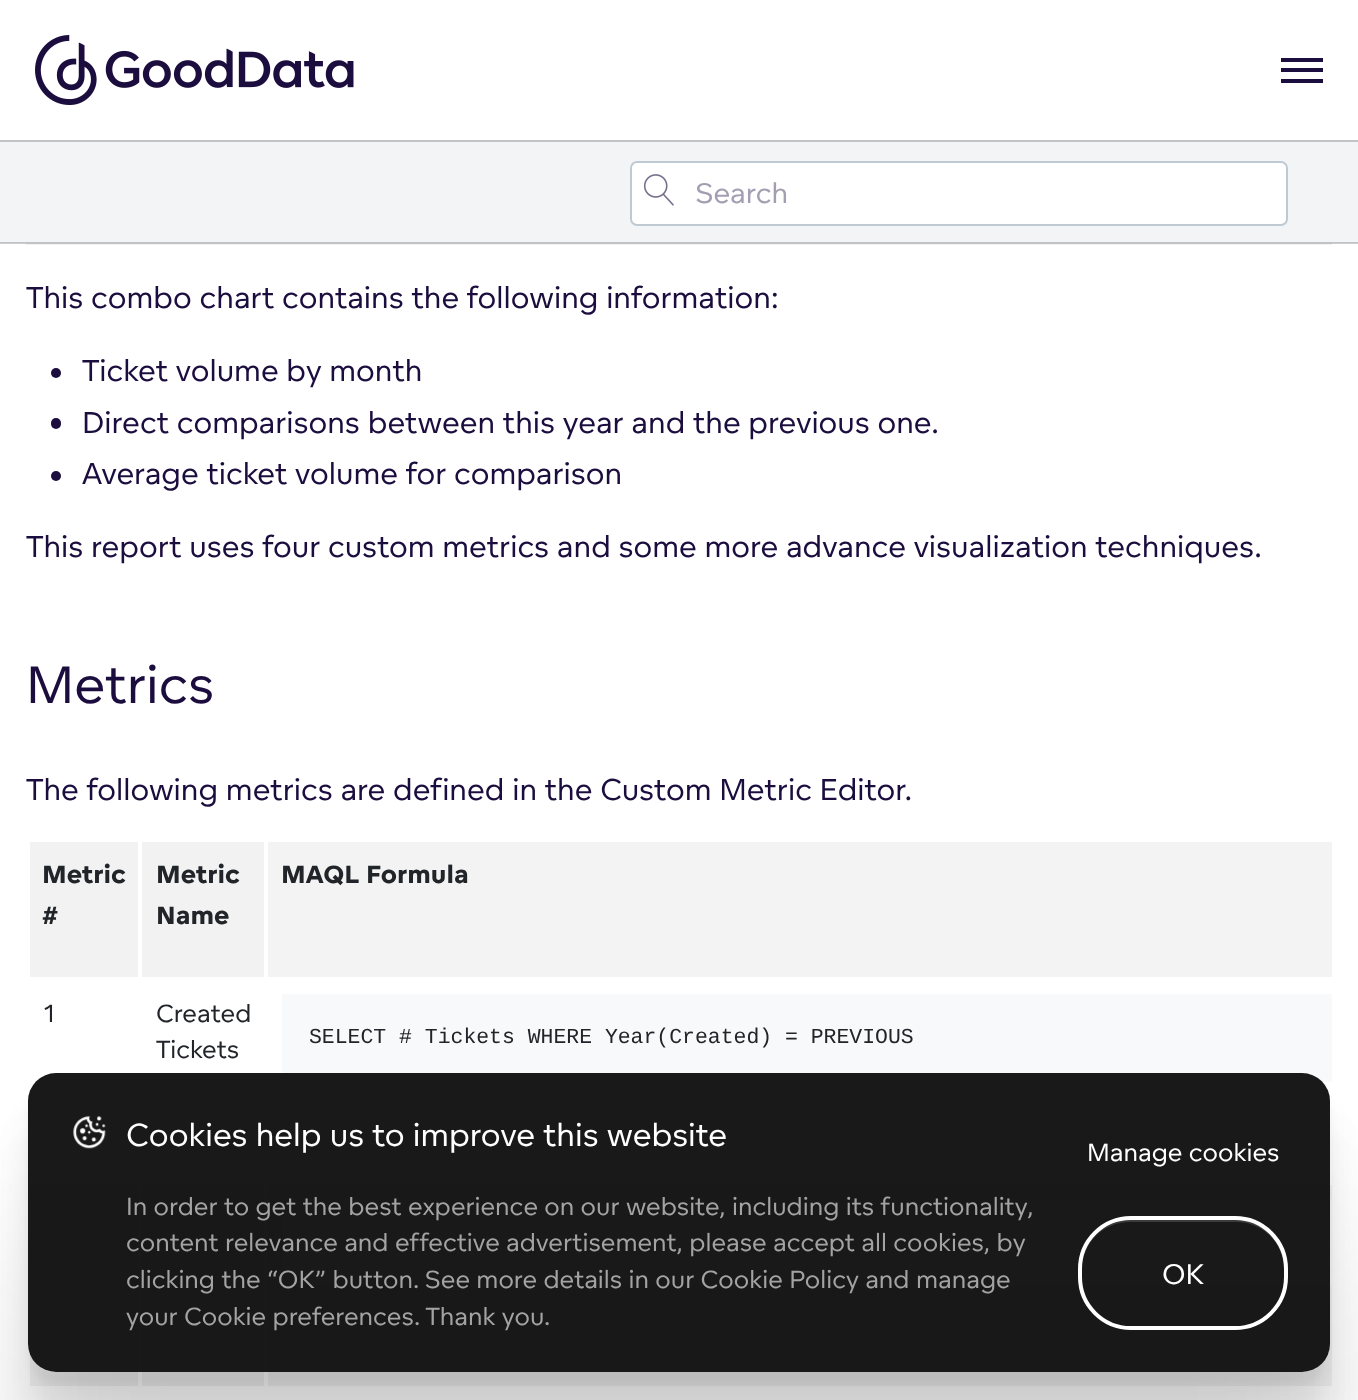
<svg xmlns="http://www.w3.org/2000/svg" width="1358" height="1400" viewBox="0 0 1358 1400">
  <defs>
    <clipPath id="clip1"><path d="M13 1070H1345V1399H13ZM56 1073H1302C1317.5 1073 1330 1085.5 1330 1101V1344C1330 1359.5 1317.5 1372 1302 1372H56C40.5 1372 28 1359.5 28 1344V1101C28 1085.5 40.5 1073 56 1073Z" clip-rule="evenodd"/></clipPath>
    <filter id="blur1" x="-50%" y="-200%" width="200%" height="500%"><feGaussianBlur stdDeviation="4.5"/></filter>
    <clipPath id="clip2"><path d="M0 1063H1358V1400H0ZM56 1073H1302C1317.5 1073 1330 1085.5 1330 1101V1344C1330 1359.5 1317.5 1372 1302 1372H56C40.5 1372 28 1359.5 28 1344V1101C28 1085.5 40.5 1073 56 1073Z" clip-rule="evenodd"/></clipPath>
    <filter id="blur2" x="-50%" y="-200%" width="200%" height="500%"><feGaussianBlur stdDeviation="15.5"/></filter>
    <clipPath id="clip3"><path d="M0 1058H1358V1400H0ZM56 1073H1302C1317.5 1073 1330 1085.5 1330 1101V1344C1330 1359.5 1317.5 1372 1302 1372H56C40.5 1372 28 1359.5 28 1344V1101C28 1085.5 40.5 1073 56 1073Z" clip-rule="evenodd"/></clipPath>
    <filter id="blur3" x="-50%" y="-200%" width="200%" height="500%"><feGaussianBlur stdDeviation="29"/></filter>
    <clipPath id="clip4"><path d="M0 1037H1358V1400H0ZM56 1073H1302C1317.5 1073 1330 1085.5 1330 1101V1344C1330 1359.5 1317.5 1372 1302 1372H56C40.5 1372 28 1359.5 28 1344V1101C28 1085.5 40.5 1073 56 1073Z" clip-rule="evenodd"/></clipPath>
    <filter id="blur4" x="-50%" y="-200%" width="200%" height="500%"><feGaussianBlur stdDeviation="70"/></filter>
  </defs>
  <rect width="100%" height="100%" fill="#ffffff"/>
  <rect x="0" y="243" width="1358" height="1" fill="#cccccc"/>
  <image x="35" y="35" width="319" height="70" href="img1.png"/>
  <rect x="1281" y="58" width="42" height="4" fill="#1c0d3f"/>
  <rect x="1281" y="68" width="42" height="4" fill="#1c0d3f"/>
  <rect x="1281" y="79" width="42" height="4" fill="#1c0d3f"/>
  <rect x="0" y="142" width="1358" height="100" fill="#f2f4f6"/>
  <rect x="0" y="242" width="1358" height="1" fill="#c2c3c5"/>
  <rect x="0" y="140" width="1358" height="2" fill="#c2c3c5"/>
  <rect x="630" y="161" width="658" height="65" rx="7" fill="#ffffff"/>
  <image x="643" y="174" width="31" height="32" href="img2.png"/>
  <rect x="631" y="162" width="656" height="63" rx="6" fill="none" stroke="#bfc9d1" stroke-width="2"/>
  <text x="695" y="203" font-family="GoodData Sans" font-size="28" fill="#a49eb2">Search</text>
  <rect x="26" y="244" width="1306" height="1" fill="#f2f2f2"/>
  <rect x="26" y="243" width="1306" height="1" fill="#c2c2c2"/>
  <text x="26" y="308" font-family="GoodData Sans" font-size="29.75" fill="#1c0d3f">This combo chart contains the following information:</text>
  <circle cx="56" cy="373" r="5" fill="#1c0d3f"/>
  <text x="82" y="381" font-family="GoodData Sans" font-size="29.75" fill="#1c0d3f">Ticket volume by month</text>
  <rect x="51" y="418" width="10" height="11" rx="5" fill="#1c0d3f"/>
  <text x="82" y="433" font-family="GoodData Sans" font-size="29.75" fill="#1c0d3f">Direct comparisons between this year and the previous one.</text>
  <circle cx="56" cy="476" r="5" fill="#1c0d3f"/>
  <text x="82" y="484" font-family="GoodData Sans" font-size="29.75" fill="#1c0d3f">Average ticket volume for comparison</text>
  <text x="26" y="557" font-family="GoodData Sans" font-size="29.75" fill="#1c0d3f">This report uses four custom metrics and some more advance visualization techniques.</text>
  <text x="26" y="703" font-family="'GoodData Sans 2'" font-size="52" fill="#1c0d3f">Metrics</text>
  <text x="26" y="800" font-family="GoodData Sans" font-size="29.75" fill="#1c0d3f">The following metrics are defined in the Custom Metric Editor.</text>
  <rect x="30" y="842" width="108" height="135" fill="#f2f2f2"/>
  <text x="42" y="883" font-family="GoodData Sans" font-size="24.5" font-weight="800" fill="#212529">Metric</text>
  <text x="42" y="924" font-family="GoodData Sans" font-size="24.5" font-weight="800" fill="#212529">#</text>
  <rect x="142" y="842" width="122" height="135" fill="#f2f2f2"/>
  <text x="156" y="883" font-family="GoodData Sans" font-size="24.5" font-weight="800" fill="#212529">Metric</text>
  <text x="156" y="924" font-family="GoodData Sans" font-size="24.5" font-weight="800" fill="#212529">Name</text>
  <rect x="268" y="842" width="1064" height="135" fill="#f3f3f3"/>
  <text x="281" y="883" font-family="GoodData Sans" font-size="24.5" font-weight="800" fill="#212529">MAQL Formula</text>
  <text x="42" y="1022" font-family="GoodData Sans" font-size="24.5" fill="#212529">1</text>
  <text x="156" y="1022" font-family="GoodData Sans" font-size="24.5" fill="#212529">Created</text>
  <text x="156" y="1058" font-family="GoodData Sans" font-size="24.5" fill="#212529">Tickets</text>
  <rect x="282" y="994" width="1050" height="88" fill="#f8f9fa"/>
  <text x="309" y="1043" font-family="Liberation Mono" font-size="21.45" fill="#212529">SELECT # Tickets WHERE Year(Created) = PREVIOUS</text>
  <rect x="30" y="1185" width="108" height="201" fill="#f2f2f2"/>
  <rect x="142" y="1185" width="122" height="201" fill="#f2f2f2"/>
  <rect x="268" y="1185" width="1064" height="201" fill="#f3f3f3"/>
  <rect x="282" y="1199" width="1050" height="87" fill="#f8f9fa"/>
  <g clip-path="url(#clip1)">
    <rect x="28" y="1085" width="1302" height="299" rx="28" fill="#000000" fill-opacity="0.04" filter="url(#blur1)"/>
  </g>
  <g clip-path="url(#clip2)">
    <rect x="28" y="1111" width="1302" height="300" rx="28" fill="#000000" fill-opacity="0.06" filter="url(#blur2)"/>
  </g>
  <g clip-path="url(#clip3)">
    <rect x="28" y="1146" width="1302" height="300" rx="28" fill="#000000" fill-opacity="0.06" filter="url(#blur3)"/>
  </g>
  <g clip-path="url(#clip4)">
    <rect x="28" y="1248" width="1302" height="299" rx="28" fill="#000000" fill-opacity="0.09" filter="url(#blur4)"/>
  </g>
  <rect x="28" y="1073" width="1302" height="299" rx="28" fill="#000000" fill-opacity="0.9"/>
  <image x="73" y="1116" width="33" height="33" href="img3.png"/>
  <text x="126" y="1146" font-family="GoodData Sans" font-size="31.5" fill="#ffffff">Cookies help us to improve this website</text>
  <text x="126" y="1215" font-family="GoodData Sans" font-size="24.5" fill="#a3a3a3">In order to get the best experience on our website, including its functionality,</text>
  <text x="126" y="1251" font-family="GoodData Sans" font-size="24.5" fill="#a3a3a3">content relevance and effective advertisement, please accept all cookies, by</text>
  <text x="126" y="1288" font-family="GoodData Sans" font-size="24.5" fill="#a3a3a3">clicking the “OK” button. See more details in our Cookie Policy and manage</text>
  <text x="126" y="1325" font-family="GoodData Sans" font-size="24.5" fill="#a3a3a3">your Cookie preferences. Thank you.</text>
  <text x="1087" y="1161" font-family="GoodData Sans" font-size="24.5" fill="#ffffff">Manage cookies</text>
  <path d="M1130 1222H1236C1263 1222 1284 1243 1284 1270V1279C1284 1289 1281 1299 1276 1307C1282 1299 1285 1289 1285 1278V1269C1285 1242 1263 1220 1236 1220H1131C1104 1220 1082 1242 1082 1269V1270C1082 1243 1103 1222 1130 1222Z" fill="#3b3b3b"/>
  <rect x="1080" y="1218" width="206" height="110" rx="51" fill="none" stroke="#ffffff" stroke-width="4"/>
  <text x="1162" y="1284" font-family="GoodData Sans" font-size="28" fill="#ffffff">OK</text>
</svg>
